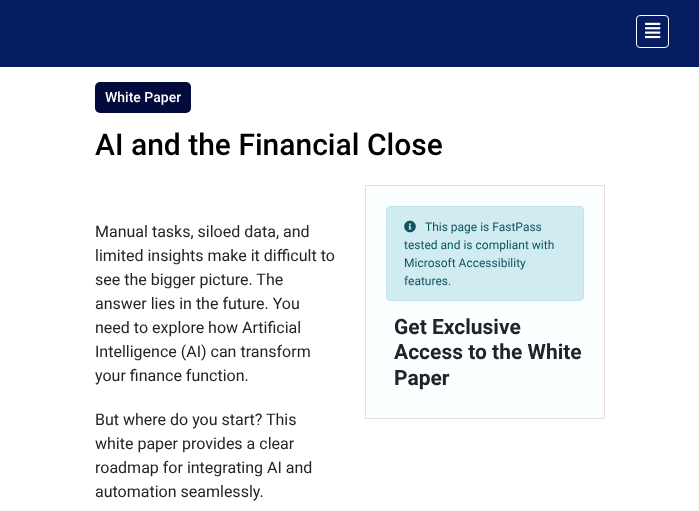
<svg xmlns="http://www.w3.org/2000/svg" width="699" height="511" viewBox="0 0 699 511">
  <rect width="100%" height="100%" fill="#ffffff"/>
  <rect x="0" y="0" width="699" height="67" fill="#061d61"/>
  <rect x="636.5" y="15.5" width="32" height="32" rx="3.5" fill="none" stroke="#ffffff"/>
  <image x="645" y="22" width="16" height="17" href="img1.png"/>
  <rect x="95" y="82" width="96" height="31" rx="5" fill="#020b3c"/>
  <text x="105" y="102" font-family="Roboto" font-size="14" font-weight="500" fill="#ffffff">White Paper</text>
  <text x="95" y="155" font-family="Roboto" font-size="30" font-weight="500" fill="#000000">AI and the Financial Close</text>
  <text x="95" y="237" font-family="Roboto" font-size="16" fill="#212529">Manual tasks, siloed data, and</text>
  <text x="95" y="261" font-family="Roboto" font-size="16" fill="#212529">limited insights make it difficult to</text>
  <text x="95" y="285" font-family="Roboto" font-size="16" fill="#212529">see the bigger picture. The</text>
  <text x="95" y="309" font-family="Roboto" font-size="16" fill="#212529">answer lies in the future. You</text>
  <text x="95" y="333" font-family="Roboto" font-size="16" fill="#212529">need to explore how Artificial</text>
  <text x="95" y="357" font-family="Roboto" font-size="16" fill="#212529">Intelligence (AI) can transform</text>
  <text x="95" y="381" font-family="Roboto" font-size="16" fill="#212529">your finance function.</text>
  <text x="95" y="425" font-family="Roboto" font-size="16" fill="#212529">But where do you start? This</text>
  <text x="95" y="449" font-family="Roboto" font-size="16" fill="#212529">white paper provides a clear</text>
  <text x="95" y="473" font-family="Roboto" font-size="16" fill="#212529">roadmap for integrating AI and</text>
  <text x="95" y="497" font-family="Roboto" font-size="16" fill="#212529">automation seamlessly.</text>
  <rect x="365.5" y="185.5" width="239" height="233" fill="#fcffff" stroke="#e9dede"/>
  <rect x="386.5" y="206.5" width="197" height="94" rx="3.5" fill="#d1ecf1" stroke="#bee5eb"/>
  <image x="404" y="220" width="12" height="13" href="img2.png"/>
  <text x="425" y="231" font-family="Roboto" font-size="12" fill="#0c5460">This page is FastPass</text>
  <text x="404" y="249" font-family="Roboto" font-size="12" fill="#0c5460">tested and is compliant with</text>
  <text x="404" y="267" font-family="Roboto" font-size="12" fill="#0c5460">Microsoft Accessibility</text>
  <text x="404" y="285" font-family="Roboto" font-size="12" fill="#0c5460">features.</text>
  <text x="394" y="334" font-family="Roboto" font-size="21" font-weight="bold" fill="#212529">Get Exclusive</text>
  <text x="394" y="359" font-family="Roboto" font-size="21" font-weight="bold" fill="#212529">Access to the White</text>
  <text x="394" y="385" font-family="Roboto" font-size="21" font-weight="bold" fill="#212529">Paper</text>
</svg>
